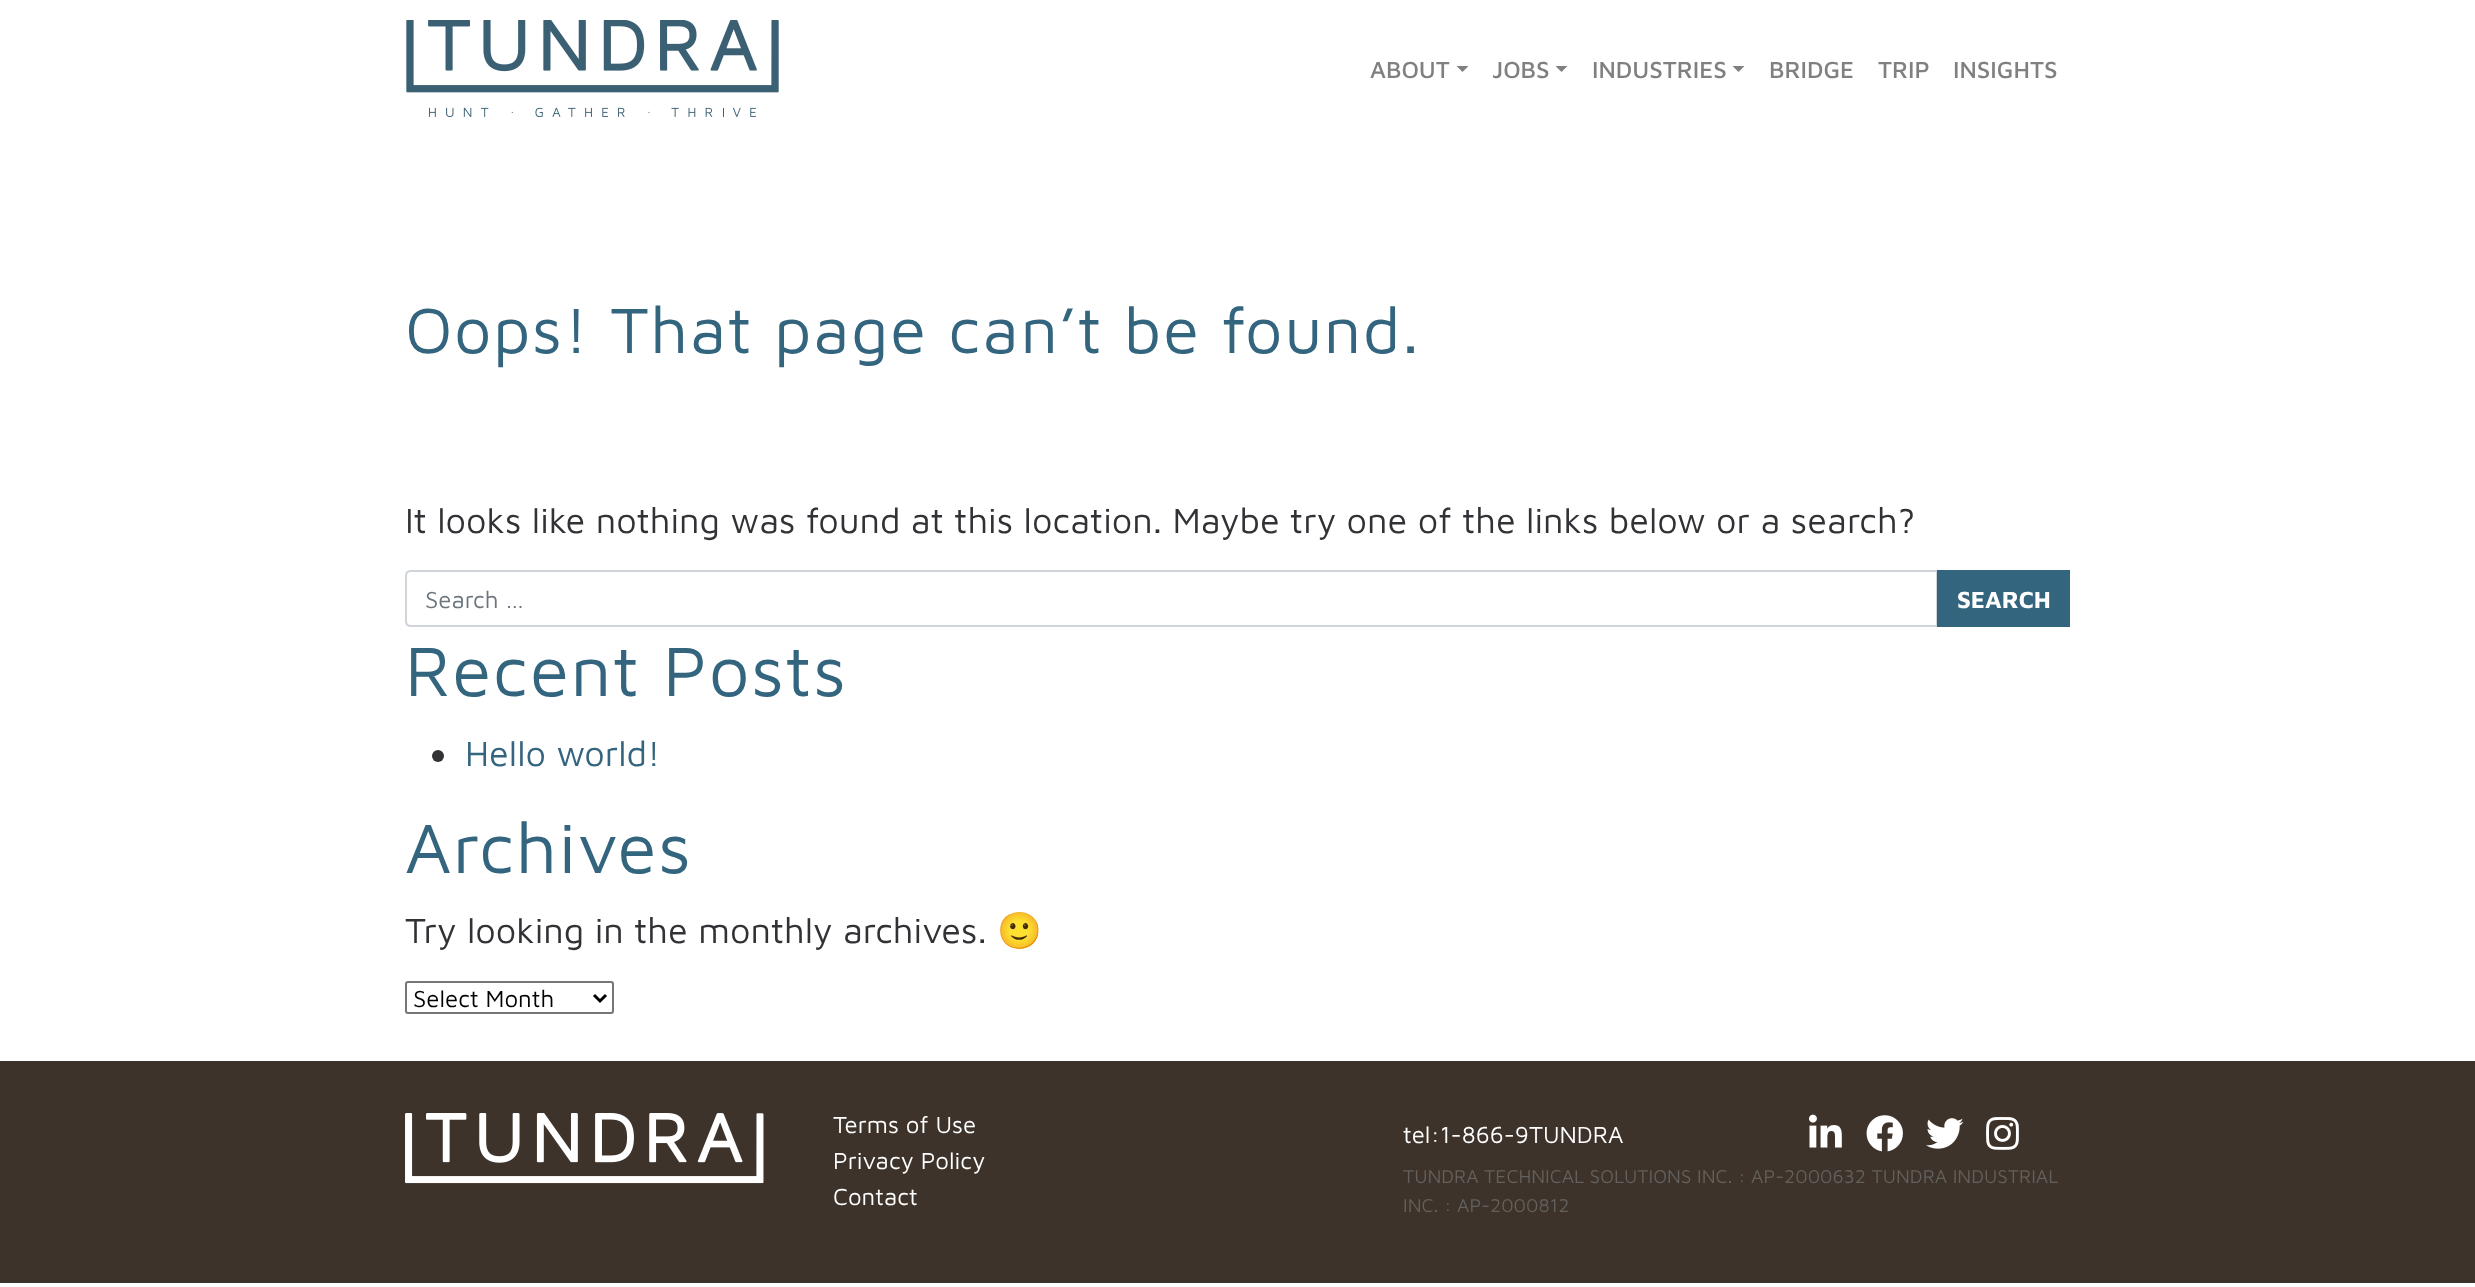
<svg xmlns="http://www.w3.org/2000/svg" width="2475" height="1287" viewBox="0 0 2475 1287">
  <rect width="100%" height="100%" fill="#ffffff"/>
  <image x="406" y="20" width="373" height="97" href="img1.png"/>
  <text x="1370" y="78" font-family="Maven Pro" font-size="24" font-weight="500" fill="#808080">ABOUT</text>
  <path d="M1456.5 66H1468.5L1462.5 72Z" fill="#808080"/>
  <text x="1492" y="78" font-family="Maven Pro" font-size="24" font-weight="500" fill="#808080">JOBS</text>
  <path d="M1555.5 66H1567.5L1561.5 72Z" fill="#808080"/>
  <text x="1592" y="78" font-family="Maven Pro" font-size="24" font-weight="500" fill="#808080">INDUSTRIES</text>
  <path d="M1732.5 66H1744.5L1738.5 72Z" fill="#808080"/>
  <text x="1769" y="78" font-family="Maven Pro" font-size="24" font-weight="500" fill="#808080">BRIDGE</text>
  <text x="1878" y="78" font-family="Maven Pro" font-size="24" font-weight="500" fill="#808080">TRIP</text>
  <text x="1953" y="78" font-family="Maven Pro" font-size="24" font-weight="500" fill="#808080">INSIGHTS</text>
  <text x="405" y="353" font-family="Maven Pro" font-size="66" letter-spacing="1.5" fill="#34657f">Oops! That page can’t be found.</text>
  <text x="405" y="533" font-family="Maven Pro" font-size="36" fill="#323136">It looks like nothing was found at this location. Maybe try one of the links below or a search?</text>
  <path d="M411 571H1937V626H411C408 626 406 624 406 621V576C406 573 408 571 411 571Z" fill="none" stroke="#ced4da" stroke-width="2"/>
  <text x="425" y="608" font-family="Maven Pro" font-size="24" fill="#6c757d">Search …</text>
  <rect x="1937" y="570" width="133" height="57" fill="#34657f"/>
  <text x="1957" y="608" font-family="Maven Pro" font-size="24" font-weight="bold" fill="#ffffff">SEARCH</text>
  <text x="405" y="696" font-family="Maven Pro" font-size="72" letter-spacing="1.5" fill="#34657f">Recent Posts</text>
  <circle cx="438" cy="756" r="6" fill="#323136"/>
  <text x="465" y="766" font-family="Maven Pro" font-size="36" fill="#34657f">Hello world!</text>
  <text x="405" y="873" font-family="Maven Pro" font-size="72" letter-spacing="1.5" fill="#34657f">Archives</text>
  <text x="405" y="943" font-family="Maven Pro" font-size="36" fill="#323136">Try looking in the monthly archives.</text>
  <text x="997" y="943" font-family="Noto Color Emoji" font-size="36" fill="#323136">🙂</text>
  <rect x="406" y="982" width="207" height="31" rx="2" fill="none" stroke="#767676" stroke-width="2"/>
  <path d="M594 995L600 1001L606 995" fill="none" stroke="#000000" stroke-width="3"/>
  <text x="413" y="1007" font-family="Maven Pro" font-size="24" fill="#000000">Select Month</text>
  <rect x="0" y="1061" width="2475" height="222" fill="#3d332b"/>
  <image x="405" y="1113" width="359" height="71" href="img2.png"/>
  <text x="833" y="1133" font-family="Maven Pro" font-size="24" fill="#ffffff">Terms of Use</text>
  <text x="833" y="1169" font-family="Maven Pro" font-size="24" fill="#ffffff">Privacy Policy</text>
  <text x="833" y="1205" font-family="Maven Pro" font-size="24" fill="#ffffff">Contact</text>
  <text x="1403" y="1143" font-family="Maven Pro" font-size="24" fill="#ffffff">tel:1-866-9TUNDRA</text>
  <image x="1809" y="1114" width="33" height="34" href="img3.png"/>
  <image x="1866" y="1115" width="37" height="37" href="img4.png"/>
  <image x="1926" y="1118" width="38" height="31" href="img5.png"/>
  <image x="1986" y="1117" width="33" height="33" href="img6.png"/>
  <text x="1403" y="1183" font-family="Maven Pro" font-size="19.2" fill="#63605d">TUNDRA TECHNICAL SOLUTIONS INC. : AP-2000632 TUNDRA INDUSTRIAL</text>
  <text x="1403" y="1212" font-family="Maven Pro" font-size="19.2" fill="#63605d">INC. : AP-2000812</text>
</svg>
